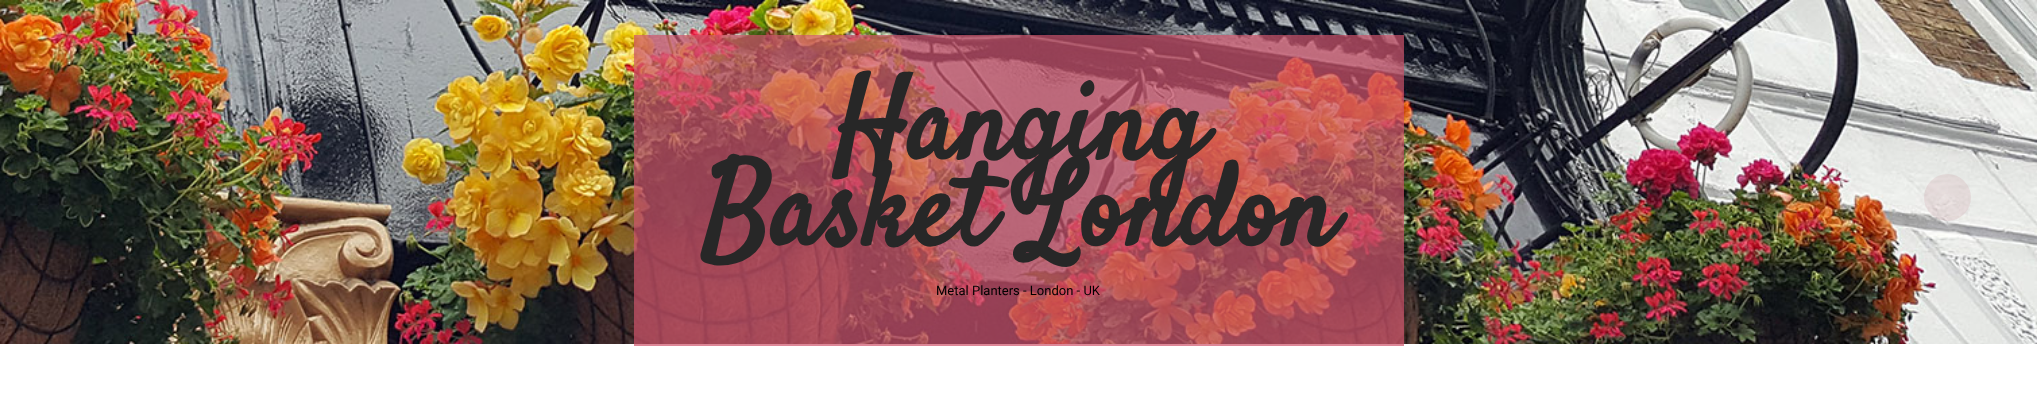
<svg xmlns="http://www.w3.org/2000/svg" width="2037" height="401" viewBox="0 0 2037 401">
  <rect width="100%" height="100%" fill="#ffffff"/>
  <image x="0" y="0" width="2037" height="344" href="img1.png"/>
  <rect x="634" y="35" width="770" height="311" fill="#ce546b" fill-opacity="0.7"/>
  <text x="833" y="158" font-family="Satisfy" font-size="116" font-weight="bold" fill="#272727">Hanging</text>
  <text x="701" y="244" font-family="Satisfy" font-size="116" font-weight="bold" fill="#272727">Basket London</text>
  <text x="936" y="295" font-family="Roboto" font-size="13" fill="#000000">Metal Planters - London - UK</text>
  <circle cx="1947.5" cy="197.5" r="23.5" fill="#a73a4f" fill-opacity="0.1"/>
  <image x="1939" y="194" width="17" height="10" href="img2.png"/>
</svg>
